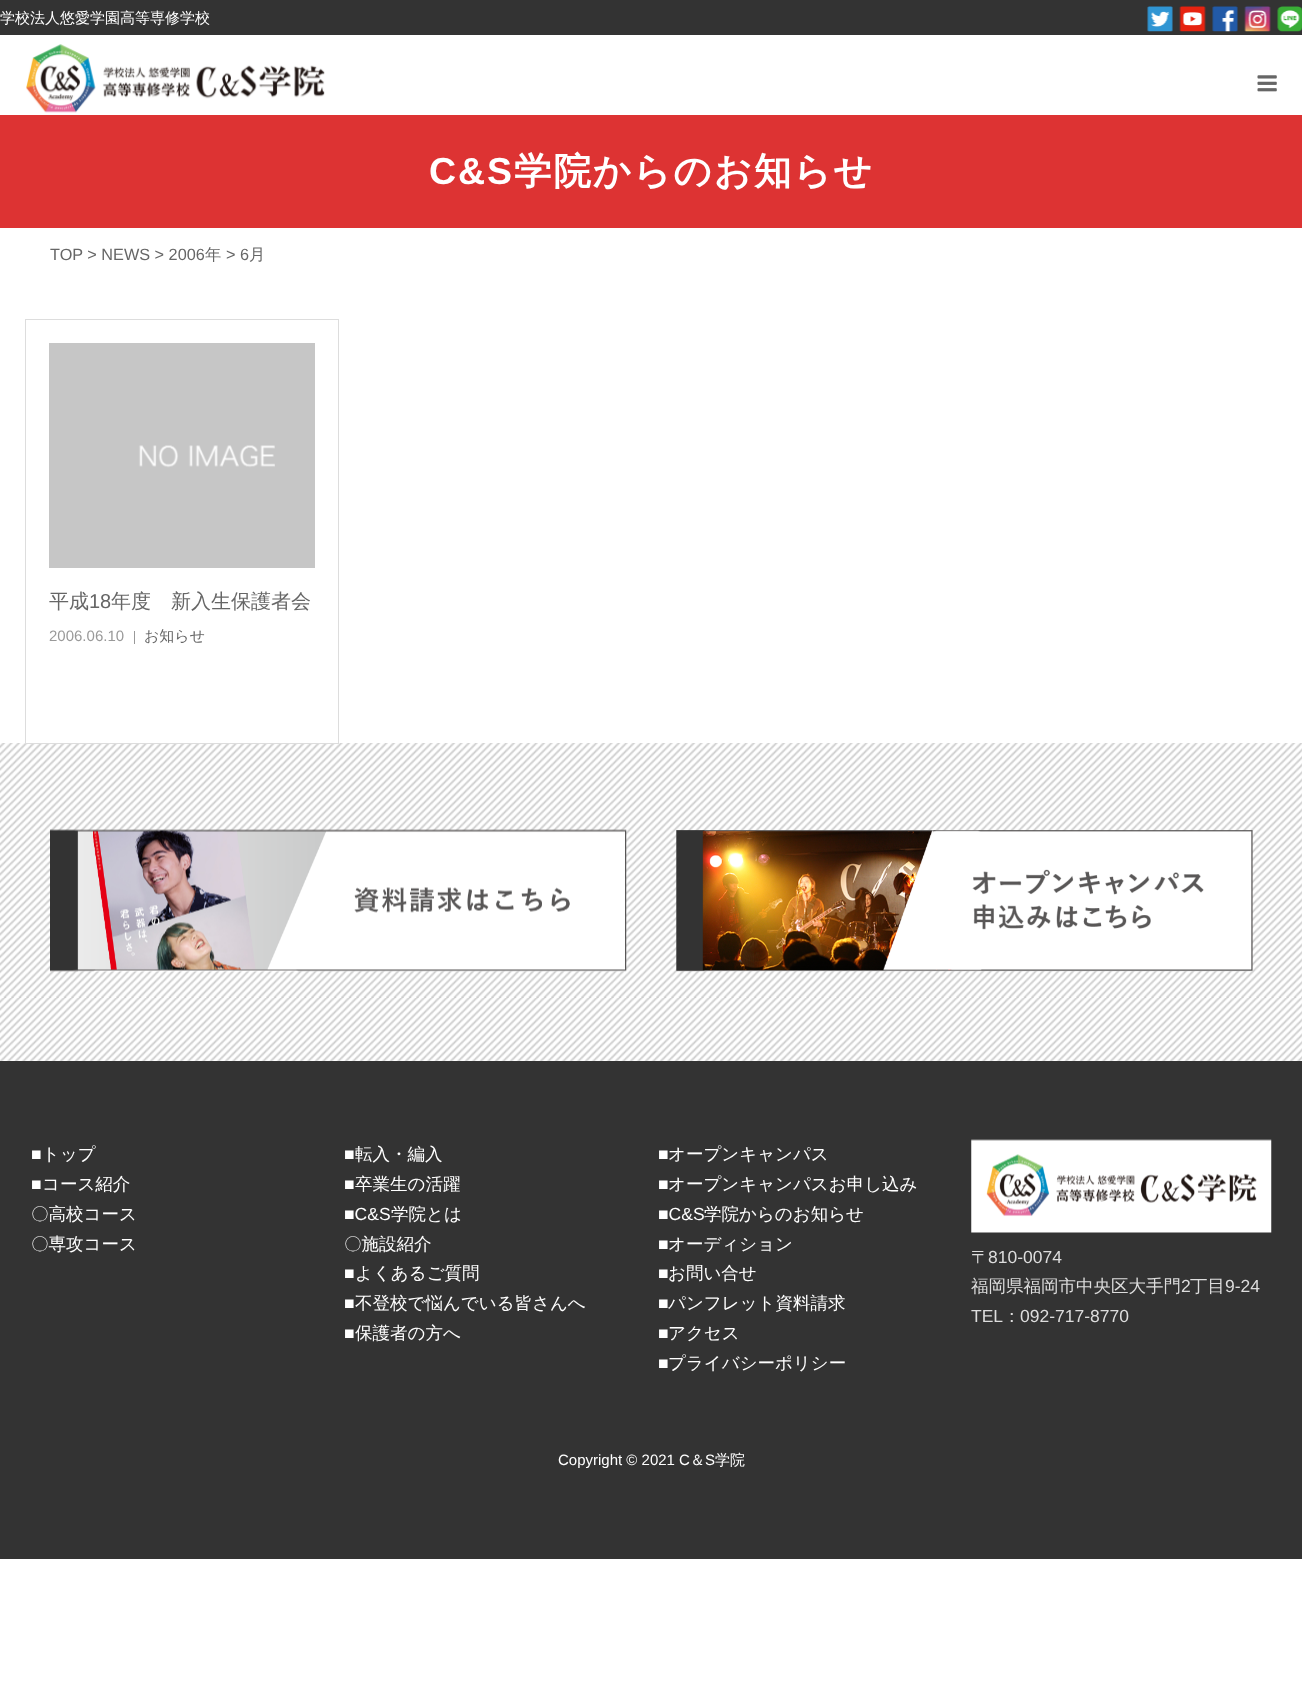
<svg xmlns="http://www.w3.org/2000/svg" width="1302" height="1683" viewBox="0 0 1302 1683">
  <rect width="100%" height="100%" fill="#ffffff"/>
  <rect x="0" y="0" width="1302" height="35" fill="#333333"/>
  <text x="0" y="23" font-family="WenQuanYi Zen Hei" font-size="15" font-weight="500" fill="#ffffff">学校法人悠愛学園高等専修学校</text>
  <image x="1147" y="6" width="26" height="26" href="img1.png"/>
  <image x="1179" y="6" width="27" height="26" href="img2.png"/>
  <image x="1212" y="6" width="26" height="26" href="img3.png"/>
  <image x="1244" y="6" width="27" height="26" href="img4.png"/>
  <image x="1277" y="6" width="25" height="26" href="img5.png"/>
  <image x="26" y="44" width="299" height="69" href="img6.png"/>
  <image x="1257" y="75" width="20" height="17" href="img7.png"/>
  <rect x="0" y="115" width="1302" height="113" fill="#dd3333"/>
  <text x="429" y="184" font-family="Liberation Sans" font-size="37.5" font-weight="bold" letter-spacing="1.9" fill="#ffffff">C&amp;S</text>
  <text x="514" y="184" font-family="WenQuanYi Zen Hei" font-size="37.5" font-weight="bold" letter-spacing="1.9" fill="#ffffff">学院からのお知らせ</text>
  <text x="50" y="260" font-family="Liberation Sans" font-size="16.25" fill="#666666">TOP &gt; NEWS &gt; 2006</text>
  <text x="205" y="260" font-family="WenQuanYi Zen Hei" font-size="16.25" font-weight="500" fill="#666666">年</text>
  <text x="226" y="260" font-family="Liberation Sans" font-size="16.25" fill="#666666">&gt; 6</text>
  <text x="249" y="260" font-family="WenQuanYi Zen Hei" font-size="16.25" font-weight="500" fill="#666666">月</text>
  <image x="0" y="743" width="1302" height="318" href="img9.png"/>
  <rect x="25.5" y="319.5" width="313" height="424" fill="none" stroke="#dddddd"/>
  <image x="49" y="343" width="266" height="225" href="img8.png"/>
  <text x="49" y="608" font-family="WenQuanYi Zen Hei" font-size="20" font-weight="500" fill="#666666">平成</text>
  <text x="89" y="608" font-family="Liberation Sans" font-size="20" fill="#666666">18</text>
  <text x="111" y="608" font-family="WenQuanYi Zen Hei" font-size="20" font-weight="500" fill="#666666">年度　新入生保護者会</text>
  <text x="49" y="641" font-family="Liberation Sans" font-size="15" fill="#999999">2006.06.10</text>
  <rect x="134" y="631" width="1" height="13" fill="#999999"/>
  <text x="144" y="641" font-family="WenQuanYi Zen Hei" font-size="15" font-weight="500" fill="#666666">お知らせ</text>
  <image x="50" y="829" width="577" height="143" href="img10.png"/>
  <image x="676" y="830" width="577" height="142" href="img11.png"/>
  <rect x="0" y="1061" width="1302" height="498" fill="#333333"/>
  <text x="31" y="1160" font-family="Liberation Sans" font-size="17.5" fill="#ffffff">■</text>
  <text x="42" y="1160" font-family="WenQuanYi Zen Hei" font-size="17.5" font-weight="500" fill="#ffffff">トップ</text>
  <text x="31" y="1190" font-family="Liberation Sans" font-size="17.5" fill="#ffffff">■</text>
  <text x="42" y="1190" font-family="WenQuanYi Zen Hei" font-size="17.5" font-weight="500" fill="#ffffff">コース紹介</text>
  <text x="31" y="1220" font-family="WenQuanYi Zen Hei" font-size="17.5" font-weight="500" fill="#ffffff">〇高校コース</text>
  <text x="31" y="1250" font-family="WenQuanYi Zen Hei" font-size="17.5" font-weight="500" fill="#ffffff">〇専攻コース</text>
  <text x="344" y="1160" font-family="Liberation Sans" font-size="17.5" fill="#ffffff">■</text>
  <text x="355" y="1160" font-family="WenQuanYi Zen Hei" font-size="17.5" font-weight="500" fill="#ffffff">転入・編入</text>
  <text x="344" y="1190" font-family="Liberation Sans" font-size="17.5" fill="#ffffff">■</text>
  <text x="355" y="1190" font-family="WenQuanYi Zen Hei" font-size="17.5" font-weight="500" fill="#ffffff">卒業生の活躍</text>
  <text x="344" y="1220" font-family="Liberation Sans" font-size="17.5" fill="#ffffff">■C&amp;S</text>
  <text x="391" y="1220" font-family="WenQuanYi Zen Hei" font-size="17.5" font-weight="500" fill="#ffffff">学院とは</text>
  <text x="344" y="1250" font-family="WenQuanYi Zen Hei" font-size="17.5" font-weight="500" fill="#ffffff">〇施設紹介</text>
  <text x="344" y="1279" font-family="Liberation Sans" font-size="17.5" fill="#ffffff">■</text>
  <text x="355" y="1279" font-family="WenQuanYi Zen Hei" font-size="17.5" font-weight="500" fill="#ffffff">よくあるご質問</text>
  <text x="344" y="1309" font-family="Liberation Sans" font-size="17.5" fill="#ffffff">■</text>
  <text x="355" y="1309" font-family="WenQuanYi Zen Hei" font-size="17.5" font-weight="500" fill="#ffffff">不登校で悩んでいる皆さんへ</text>
  <text x="344" y="1339" font-family="Liberation Sans" font-size="17.5" fill="#ffffff">■</text>
  <text x="355" y="1339" font-family="WenQuanYi Zen Hei" font-size="17.5" font-weight="500" fill="#ffffff">保護者の方へ</text>
  <text x="658" y="1160" font-family="Liberation Sans" font-size="17.5" fill="#ffffff">■</text>
  <text x="668" y="1160" font-family="WenQuanYi Zen Hei" font-size="17.5" font-weight="500" fill="#ffffff">オープンキャンパス</text>
  <text x="658" y="1190" font-family="Liberation Sans" font-size="17.5" fill="#ffffff">■</text>
  <text x="668" y="1190" font-family="WenQuanYi Zen Hei" font-size="17.5" font-weight="500" fill="#ffffff">オープンキャンパスお申し込み</text>
  <text x="658" y="1220" font-family="Liberation Sans" font-size="17.5" fill="#ffffff">■C&amp;S</text>
  <text x="704" y="1220" font-family="WenQuanYi Zen Hei" font-size="17.5" font-weight="500" fill="#ffffff">学院からのお知らせ</text>
  <text x="658" y="1250" font-family="Liberation Sans" font-size="17.5" fill="#ffffff">■</text>
  <text x="668" y="1250" font-family="WenQuanYi Zen Hei" font-size="17.5" font-weight="500" fill="#ffffff">オーディション</text>
  <text x="658" y="1279" font-family="Liberation Sans" font-size="17.5" fill="#ffffff">■</text>
  <text x="668" y="1279" font-family="WenQuanYi Zen Hei" font-size="17.5" font-weight="500" fill="#ffffff">お問い合せ</text>
  <text x="658" y="1309" font-family="Liberation Sans" font-size="17.5" fill="#ffffff">■</text>
  <text x="668" y="1309" font-family="WenQuanYi Zen Hei" font-size="17.5" font-weight="500" fill="#ffffff">パンフレット資料請求</text>
  <text x="658" y="1339" font-family="Liberation Sans" font-size="17.5" fill="#ffffff">■</text>
  <text x="668" y="1339" font-family="WenQuanYi Zen Hei" font-size="17.5" font-weight="500" fill="#ffffff">アクセス</text>
  <text x="658" y="1369" font-family="Liberation Sans" font-size="17.5" fill="#ffffff">■</text>
  <text x="668" y="1369" font-family="WenQuanYi Zen Hei" font-size="17.5" font-weight="500" fill="#ffffff">プライバシーポリシー</text>
  <image x="971" y="1139" width="301" height="94" href="img12.png"/>
  <text x="971" y="1263" font-family="WenQuanYi Zen Hei" font-size="17.5" font-weight="500" fill="#dddddd">〒</text>
  <text x="988" y="1263" font-family="Liberation Sans" font-size="17.5" fill="#dddddd">810-0074</text>
  <text x="971" y="1292" font-family="WenQuanYi Zen Hei" font-size="17.5" font-weight="500" fill="#dddddd">福岡県福岡市中央区大手門</text>
  <text x="1181" y="1292" font-family="Liberation Sans" font-size="17.5" fill="#dddddd">2</text>
  <text x="1190" y="1292" font-family="WenQuanYi Zen Hei" font-size="17.5" font-weight="500" fill="#dddddd">丁目</text>
  <text x="1225" y="1292" font-family="Liberation Sans" font-size="17.5" fill="#dddddd">9-24</text>
  <text x="971" y="1322" font-family="Liberation Sans" font-size="17.5" fill="#dddddd">TEL</text>
  <text x="1003" y="1322" font-family="WenQuanYi Zen Hei" font-size="17.5" font-weight="500" fill="#dddddd">：</text>
  <text x="1020" y="1322" font-family="Liberation Sans" font-size="17.5" fill="#dddddd">092-717-8770</text>
  <text x="558" y="1465" font-family="Liberation Sans" font-size="15" fill="#ffffff">Copyright © 2021 C</text>
  <text x="690" y="1465" font-family="WenQuanYi Zen Hei" font-size="15" font-weight="500" fill="#ffffff">＆</text>
  <text x="705" y="1465" font-family="Liberation Sans" font-size="15" fill="#ffffff">S</text>
  <text x="715" y="1465" font-family="WenQuanYi Zen Hei" font-size="15" font-weight="500" fill="#ffffff">学院</text>
</svg>
